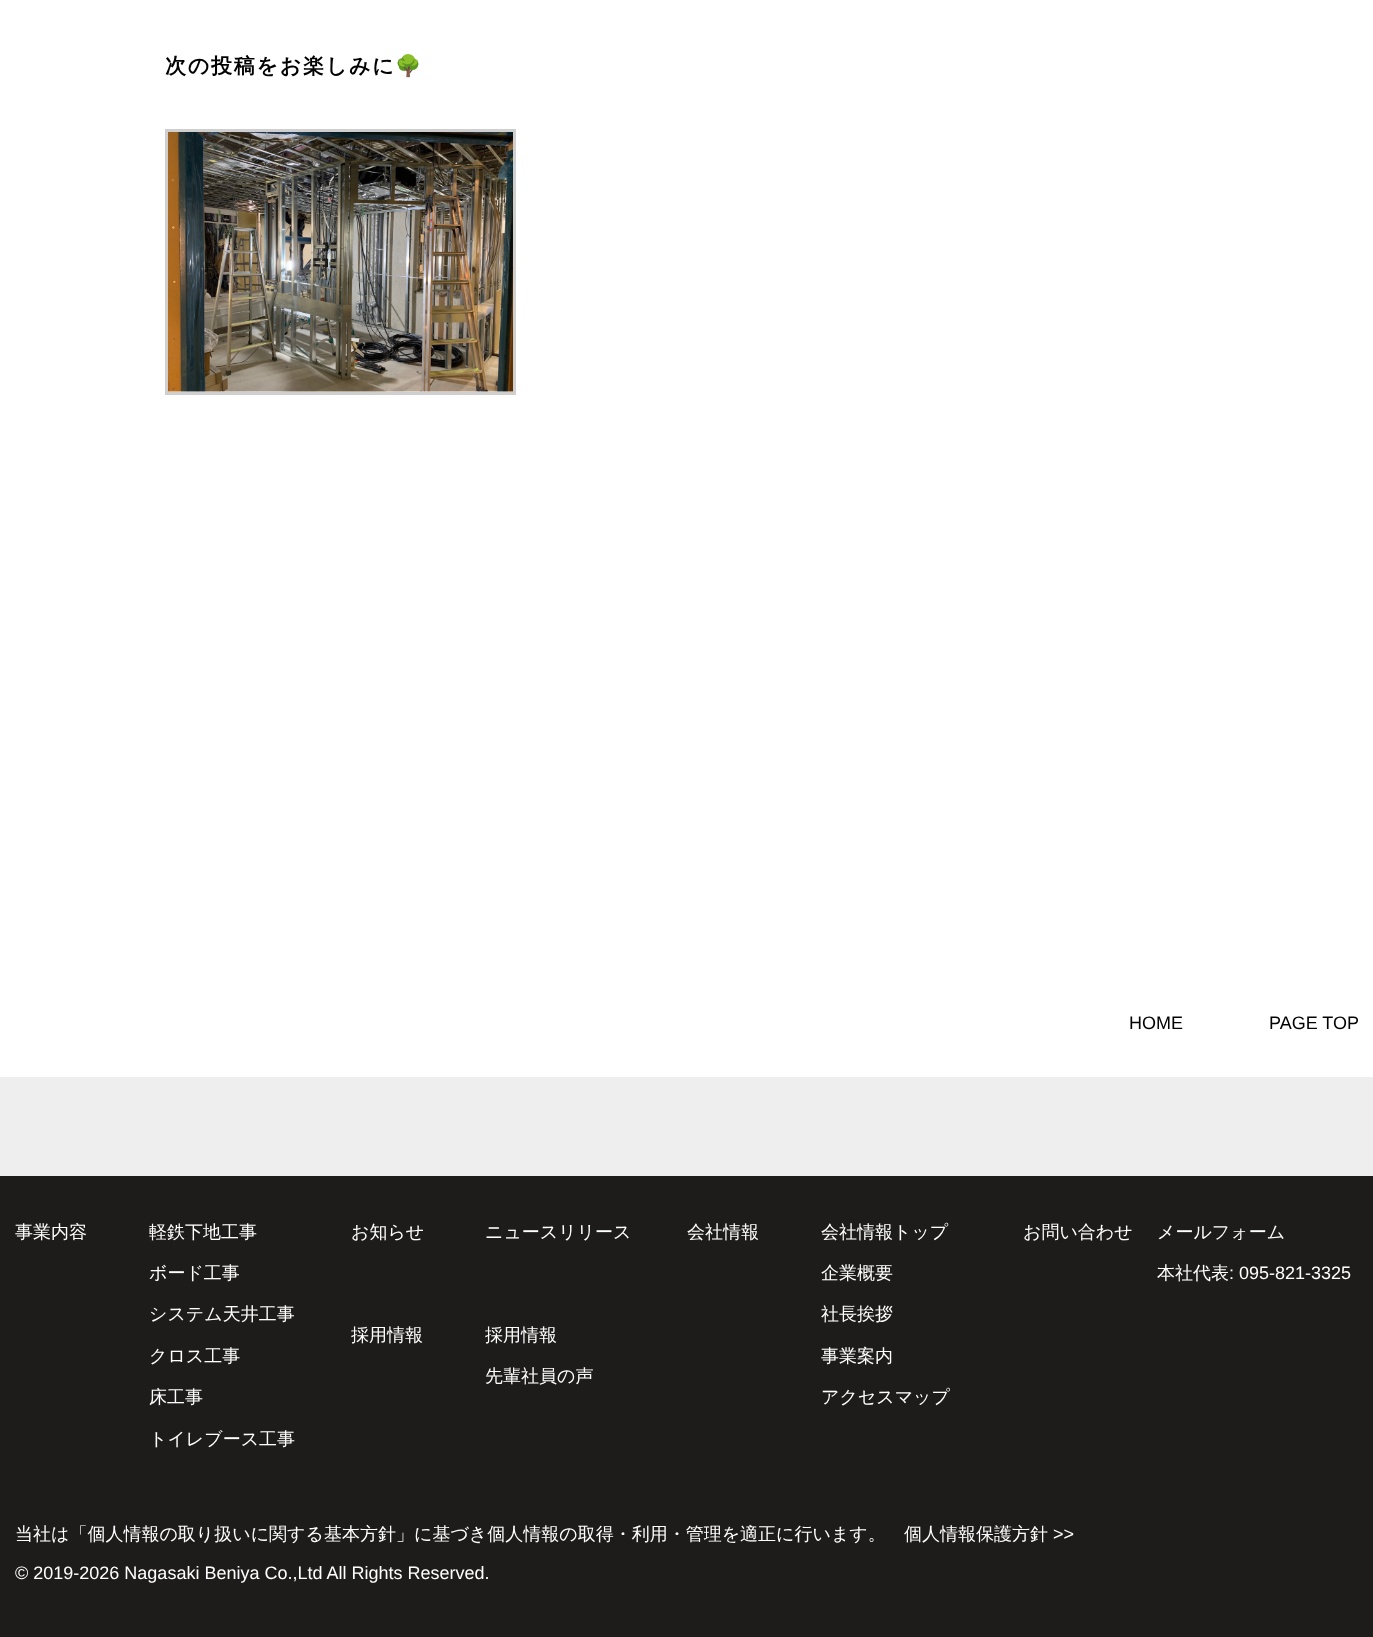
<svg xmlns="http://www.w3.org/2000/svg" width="1373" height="1637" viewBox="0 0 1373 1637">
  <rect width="100%" height="100%" fill="#ffffff"/>
  <text x="165" y="73" font-family="WenQuanYi Zen Hei" font-size="21" font-weight="bold" letter-spacing="1.75" fill="#000000">次の投稿をお楽しみに</text>
  <text x="395" y="73" font-family="Noto Color Emoji" font-size="21" font-weight="bold" letter-spacing="1.75" fill="#000000">🌳</text>
  <rect x="166.5" y="130.5" width="348" height="263" fill="none" stroke="#cfcfcf" stroke-width="3"/>
  <image x="168" y="132" width="345" height="260" href="img1.png"/>
  <text x="1129" y="1029" font-family="Liberation Sans" font-size="18" fill="#000000">HOME</text>
  <text x="1269" y="1029" font-family="Liberation Sans" font-size="18" fill="#000000">PAGE TOP</text>
  <rect x="0" y="1077" width="1373" height="99" fill="#eeeeee"/>
  <rect x="0" y="1176" width="1373" height="461" fill="#1e1c1a"/>
  <text x="15" y="1238" font-family="WenQuanYi Zen Hei" font-size="18" font-weight="500" fill="#ffffff">事業内容</text>
  <text x="149" y="1238" font-family="WenQuanYi Zen Hei" font-size="18" font-weight="500" fill="#ffffff">軽鉄下地工事</text>
  <text x="149" y="1279" font-family="WenQuanYi Zen Hei" font-size="18" font-weight="500" fill="#ffffff">ボード工事</text>
  <text x="149" y="1320" font-family="WenQuanYi Zen Hei" font-size="18" font-weight="500" fill="#ffffff">システム天井工事</text>
  <text x="149" y="1362" font-family="WenQuanYi Zen Hei" font-size="18" font-weight="500" fill="#ffffff">クロス工事</text>
  <text x="149" y="1403" font-family="WenQuanYi Zen Hei" font-size="18" font-weight="500" fill="#ffffff">床工事</text>
  <text x="149" y="1445" font-family="WenQuanYi Zen Hei" font-size="18" font-weight="500" fill="#ffffff">トイレブース工事</text>
  <text x="351" y="1238" font-family="WenQuanYi Zen Hei" font-size="18" font-weight="500" fill="#ffffff">お知らせ</text>
  <text x="485" y="1238" font-family="WenQuanYi Zen Hei" font-size="18" font-weight="500" fill="#ffffff">ニュースリリース</text>
  <text x="351" y="1341" font-family="WenQuanYi Zen Hei" font-size="18" font-weight="500" fill="#ffffff">採用情報</text>
  <text x="485" y="1341" font-family="WenQuanYi Zen Hei" font-size="18" font-weight="500" fill="#ffffff">採用情報</text>
  <text x="485" y="1382" font-family="WenQuanYi Zen Hei" font-size="18" font-weight="500" fill="#ffffff">先輩社員の声</text>
  <text x="687" y="1238" font-family="WenQuanYi Zen Hei" font-size="18" font-weight="500" fill="#ffffff">会社情報</text>
  <text x="821" y="1238" font-family="WenQuanYi Zen Hei" font-size="18" font-weight="500" fill="#ffffff">会社情報トップ</text>
  <text x="821" y="1279" font-family="WenQuanYi Zen Hei" font-size="18" font-weight="500" fill="#ffffff">企業概要</text>
  <text x="821" y="1320" font-family="WenQuanYi Zen Hei" font-size="18" font-weight="500" fill="#ffffff">社長挨拶</text>
  <text x="821" y="1362" font-family="WenQuanYi Zen Hei" font-size="18" font-weight="500" fill="#ffffff">事業案内</text>
  <text x="821" y="1403" font-family="WenQuanYi Zen Hei" font-size="18" font-weight="500" fill="#ffffff">アクセスマップ</text>
  <text x="1023" y="1238" font-family="WenQuanYi Zen Hei" font-size="18" font-weight="500" fill="#ffffff">お問い合わせ</text>
  <text x="1157" y="1238" font-family="WenQuanYi Zen Hei" font-size="18" font-weight="500" fill="#ffffff">メールフォーム</text>
  <text x="1157" y="1279" font-family="WenQuanYi Zen Hei" font-size="18" font-weight="500" fill="#ffffff">本社代表</text>
  <text x="1229" y="1279" font-family="Liberation Sans" font-size="18" fill="#ffffff">: 095-821-3325</text>
  <text x="15" y="1540" font-family="WenQuanYi Zen Hei" font-size="18" font-weight="500" fill="#ffffff">当社は「個人情報の取り扱いに関する基本方針」に基づき個人情報の取得・利用・管理を適正に行います。</text>
  <text x="904" y="1540" font-family="WenQuanYi Zen Hei" font-size="18" font-weight="500" fill="#ffffff">個人情報保護方針</text>
  <text x="1053" y="1540" font-family="Liberation Sans" font-size="18" fill="#ffffff">&gt;&gt;</text>
  <text x="15" y="1579" font-family="Liberation Sans" font-size="18" fill="#ffffff">© 2019-2026 Nagasaki Beniya Co.,Ltd All Rights Reserved.</text>
</svg>
